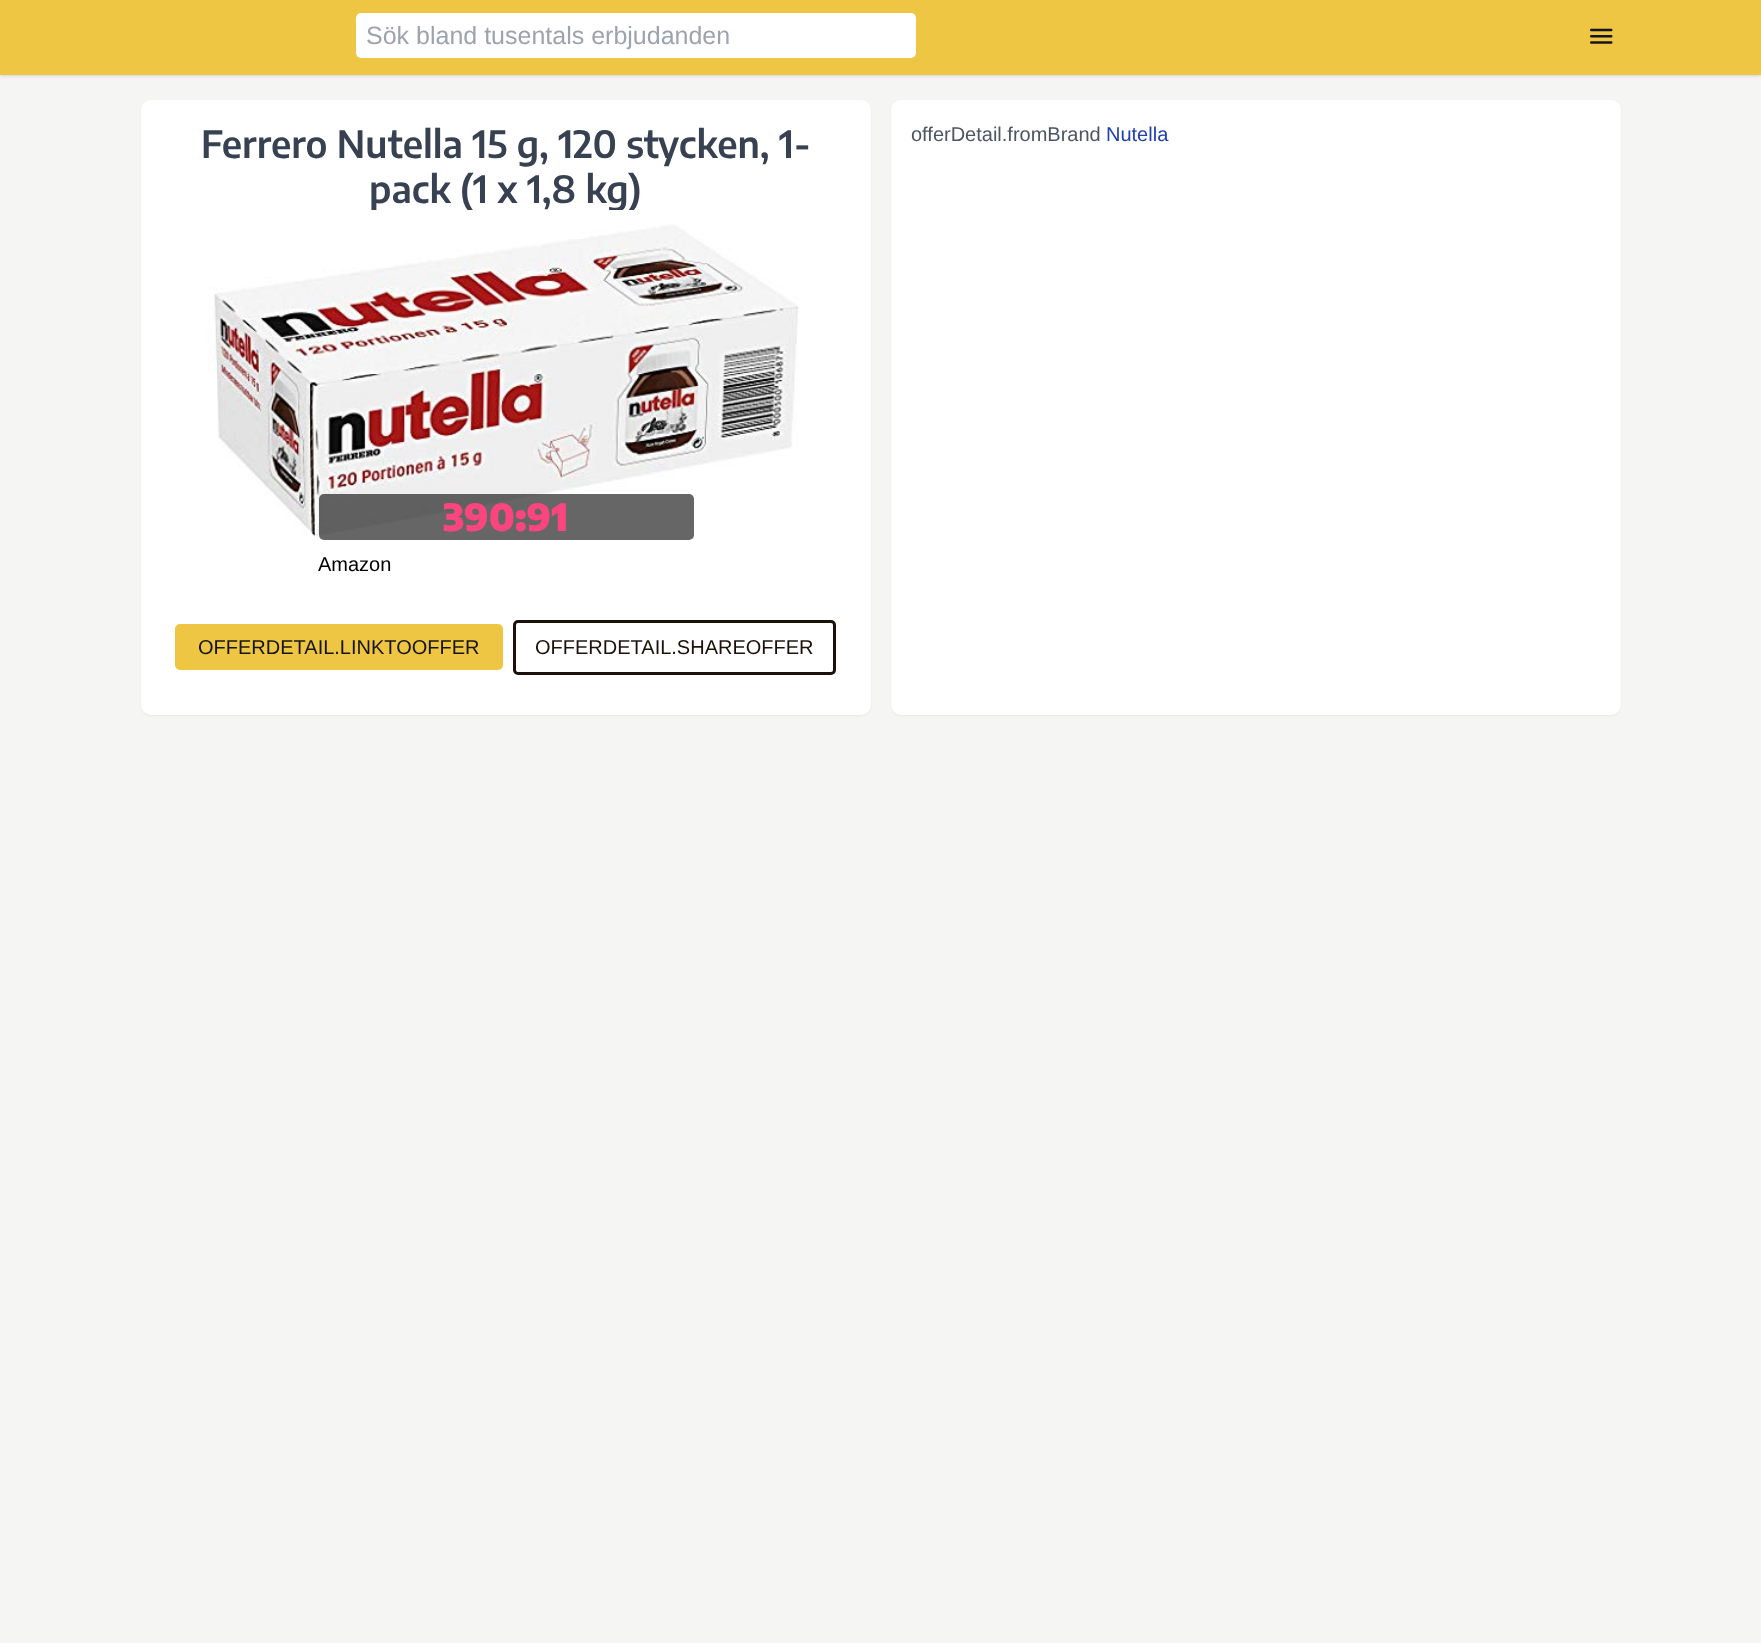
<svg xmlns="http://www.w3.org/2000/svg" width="1761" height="1643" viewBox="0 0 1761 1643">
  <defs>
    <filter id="blur1" x="-50%" y="-200%" width="200%" height="500%"><feGaussianBlur stdDeviation="1"/></filter>
    <filter id="blur2" x="-50%" y="-200%" width="200%" height="500%"><feGaussianBlur stdDeviation="2"/></filter>
    <clipPath id="clip1"><rect x="161" y="120" width="690" height="90"/></clipPath>
  </defs>
  <rect width="100%" height="100%" fill="#f5f5f4"/>
  <rect x="1" y="3" width="1759" height="72" fill="#000000" fill-opacity="0.1" filter="url(#blur1)"/>
  <rect x="0" y="1" width="1761" height="75" fill="#000000" fill-opacity="0.1" filter="url(#blur2)"/>
  <rect x="0" y="0" width="1761" height="75" fill="#eec643"/>
  <rect x="356" y="13" width="560" height="45" rx="5" fill="#ffffff"/>
  <text x="366" y="44" font-family="Liberation Sans" font-size="25" fill="#9ca3af">Sök bland tusentals erbjudanden</text>
  <image x="1590" y="28" width="23" height="16" href="img1.png"/>
  <rect x="141" y="101" width="730" height="615" rx="10" fill="#000000" fill-opacity="0.05" filter="url(#blur1)"/>
  <rect x="141" y="100" width="730" height="615" rx="10" fill="#ffffff"/>
  <text x="201" y="158" font-family="Encode Sans Condensed" font-size="37.5" font-weight="600" fill="#374151">Ferrero Nutella 15 g, 120 stycken, 1-</text>
  <g clip-path="url(#clip1)">
    <text x="369" y="203" font-family="Encode Sans Condensed" font-size="37.5" font-weight="600" fill="#374151">pack (1 x 1,8 kg)</text>
  </g>
  <image x="207" y="224" width="592" height="314" href="img2.png"/>
  <rect x="319" y="494" width="375" height="46" rx="5" fill="#000000" fill-opacity="0.6"/>
  <text x="443" y="531" font-family="Encode Sans Condensed" font-size="37.5" font-weight="900" fill="#fb457e">390:91</text>
  <text x="318" y="571" font-family="Liberation Sans" font-size="20" fill="#000000">Amazon</text>
  <rect x="176.5" y="625.5" width="325" height="43" rx="3.5" fill="#eec643" stroke="#eec643" stroke-width="3"/>
  <text x="198" y="654" font-family="Liberation Sans" font-size="20" fill="#141414">OFFERDETAIL.LINKTOOFFER</text>
  <rect x="514.5" y="621.5" width="320" height="52" rx="3.5" fill="none" stroke="#1c110a" stroke-width="3"/>
  <text x="535" y="654" font-family="Liberation Sans" font-size="20" fill="#1c110a">OFFERDETAIL.SHAREOFFER</text>
  <rect x="891" y="101" width="730" height="615" rx="10" fill="#000000" fill-opacity="0.05" filter="url(#blur1)"/>
  <rect x="891" y="100" width="730" height="615" rx="10" fill="#ffffff"/>
  <text x="911" y="141" font-family="Liberation Sans" font-size="20" fill="#4b5563">offerDetail.fromBrand</text>
  <text x="1106" y="141" font-family="Liberation Sans" font-size="20" fill="#1e40af">Nutella</text>
</svg>
